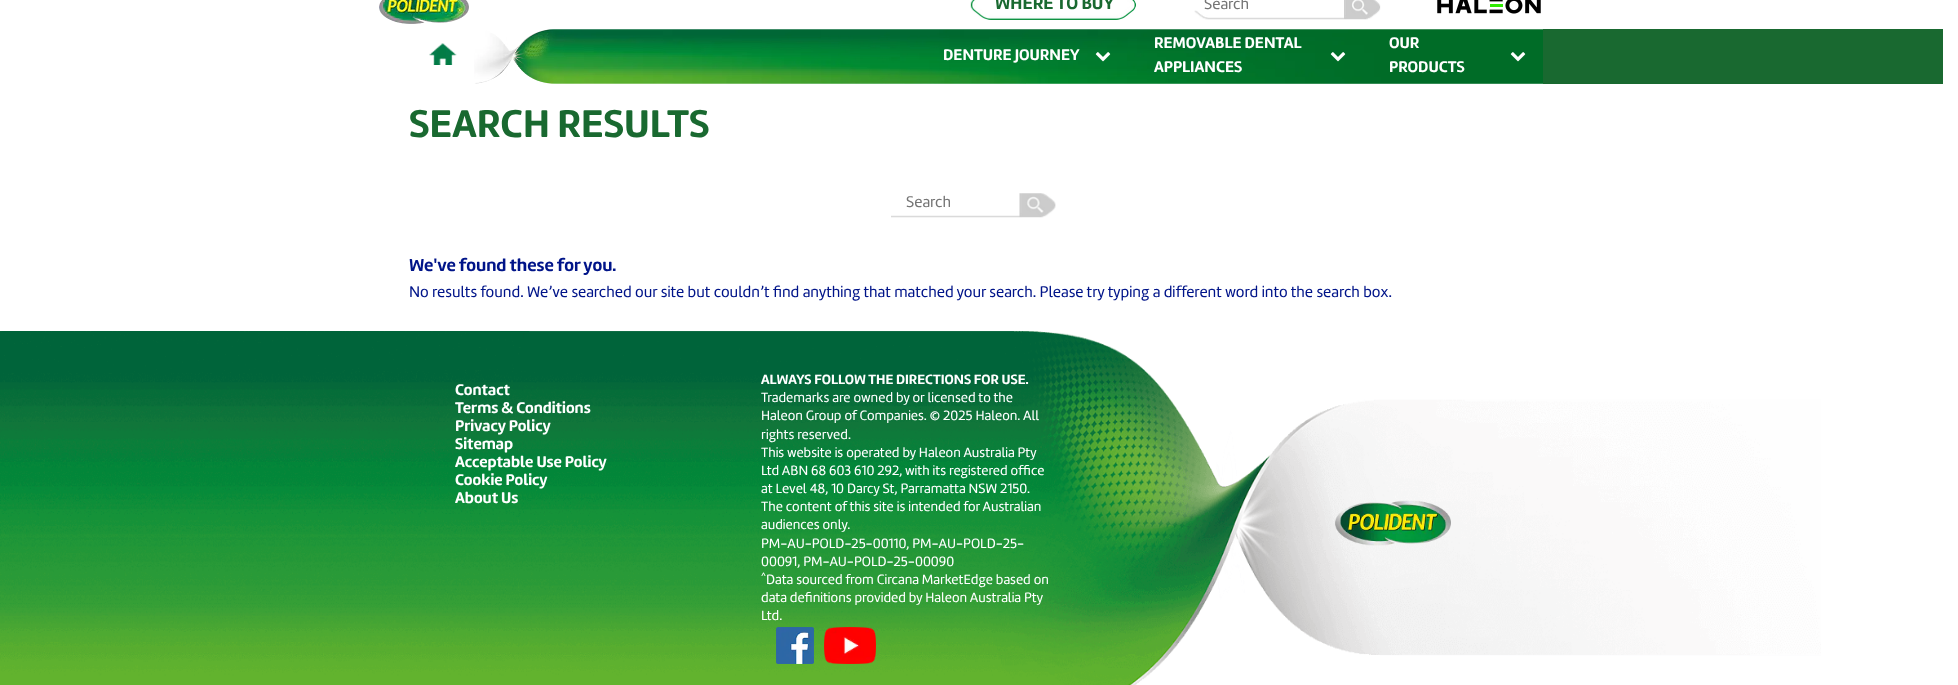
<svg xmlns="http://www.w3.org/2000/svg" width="1958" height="685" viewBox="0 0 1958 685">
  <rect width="100%" height="100%" fill="#ffffff"/>
  <image x="379" y="0" width="90" height="24" href="img1.png"/>
  <image x="970" y="0" width="166" height="20" href="img2.png"/>
  <text x="995" y="9" font-family="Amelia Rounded" font-size="18" font-weight="bold" fill="#196930">WHERE TO BUY</text>
  <image x="1194" y="0" width="187" height="20" href="img3.png"/>
  <text x="1204" y="9" font-family="Amelia Rounded" font-size="16" fill="#757575">Search</text>
  <image x="1437" y="0" width="104" height="14" href="img4.png"/>
  <image x="474" y="29" width="1069" height="55" href="img5.png"/>
  <image x="429" y="43" width="28" height="22" href="img6.png"/>
  <text x="943" y="60" font-family="Amelia Rounded" font-size="16" font-weight="bold" fill="#ffffff">DENTURE JOURNEY</text>
  <image x="1095" y="52" width="16" height="10" href="img7.png"/>
  <text x="1154" y="48" font-family="Amelia Rounded" font-size="16" font-weight="bold" fill="#ffffff">REMOVABLE DENTAL</text>
  <image x="1330" y="52" width="16" height="10" href="img8.png"/>
  <text x="1154" y="72" font-family="Amelia Rounded" font-size="16" font-weight="bold" fill="#ffffff">APPLIANCES</text>
  <text x="1389" y="48" font-family="Amelia Rounded" font-size="16" font-weight="bold" fill="#ffffff">OUR</text>
  <image x="1510" y="52" width="16" height="10" href="img9.png"/>
  <text x="1389" y="72" font-family="Amelia Rounded" font-size="16" font-weight="bold" fill="#ffffff">PRODUCTS</text>
  <rect x="1543" y="29" width="400" height="55" fill="#196930"/>
  <text x="409" y="137" font-family="Amelia Rounded" font-size="40" font-weight="bold" fill="#196930">SEARCH RESULTS</text>
  <image x="891" y="193" width="165" height="25" href="img10.png"/>
  <text x="906" y="207" font-family="Amelia Rounded" font-size="16" fill="#757575">Search</text>
  <text x="409" y="271" font-family="Amelia Rounded" font-size="18" font-weight="bold" fill="#001489">We've found these for you.</text>
  <text x="409" y="297" font-family="Amelia Rounded" font-size="16" fill="#001489">No results found. We’ve searched our site but couldn’t find anything that matched your search. Please try typing a different word into the search box.</text>
  <image x="0" y="331" width="1821" height="354" href="img11.png"/>
  <text x="455" y="395" font-family="Amelia Rounded" font-size="16" font-weight="bold" fill="#ffffff">Contact</text>
  <text x="455" y="413" font-family="Amelia Rounded" font-size="16" font-weight="bold" fill="#ffffff">Terms &amp; Conditions</text>
  <text x="455" y="431" font-family="Amelia Rounded" font-size="16" font-weight="bold" fill="#ffffff">Privacy Policy</text>
  <text x="455" y="449" font-family="Amelia Rounded" font-size="16" font-weight="bold" fill="#ffffff">Sitemap</text>
  <text x="455" y="467" font-family="Amelia Rounded" font-size="16" font-weight="bold" fill="#ffffff">Acceptable Use Policy</text>
  <text x="455" y="485" font-family="Amelia Rounded" font-size="16" font-weight="bold" fill="#ffffff">Cookie Policy</text>
  <text x="455" y="503" font-family="Amelia Rounded" font-size="16" font-weight="bold" fill="#ffffff">About Us</text>
  <text x="761" y="384" font-family="Amelia Rounded" font-size="14" font-weight="bold" fill="#ffffff">ALWAYS FOLLOW THE DIRECTIONS FOR USE.</text>
  <text x="761" y="402" font-family="Amelia Rounded" font-size="14" fill="#ffffff">Trademarks are owned by or licensed to the</text>
  <text x="761" y="420" font-family="Amelia Rounded" font-size="14" fill="#ffffff">Haleon Group of Companies. © 2025 Haleon. All</text>
  <text x="761" y="439" font-family="Amelia Rounded" font-size="14" fill="#ffffff">rights reserved.</text>
  <text x="761" y="457" font-family="Amelia Rounded" font-size="14" fill="#ffffff">This website is operated by Haleon Australia Pty</text>
  <text x="761" y="475" font-family="Amelia Rounded" font-size="14" fill="#ffffff">Ltd ABN 68 603 610 292, with its registered office</text>
  <text x="761" y="493" font-family="Amelia Rounded" font-size="14" fill="#ffffff">at Level 48, 10 Darcy St, Parramatta NSW 2150.</text>
  <text x="761" y="511" font-family="Amelia Rounded" font-size="14" fill="#ffffff">The content of this site is intended for Australian</text>
  <text x="761" y="529" font-family="Amelia Rounded" font-size="14" fill="#ffffff">audiences only.</text>
  <text x="761" y="548" font-family="Amelia Rounded" font-size="14" fill="#ffffff">PM-AU-POLD-25-00110, PM-AU-POLD-25-</text>
  <text x="761" y="566" font-family="Amelia Rounded" font-size="14" fill="#ffffff">00091, PM-AU-POLD-25-00090</text>
  <text x="761" y="579" font-family="Amelia Rounded" font-size="10" fill="#ffffff">^</text>
  <text x="766" y="584" font-family="Amelia Rounded" font-size="14" fill="#ffffff">Data sourced from Circana MarketEdge based on</text>
  <text x="761" y="602" font-family="Amelia Rounded" font-size="14" fill="#ffffff">data definitions provided by Haleon Australia Pty</text>
  <text x="761" y="620" font-family="Amelia Rounded" font-size="14" fill="#ffffff">Ltd.</text>
  <image x="776" y="627" width="38" height="37" href="img12.png"/>
  <image x="824" y="627" width="52" height="37" href="img13.png"/>
  <image x="1335" y="500" width="116" height="46" href="img14.png"/>
</svg>
